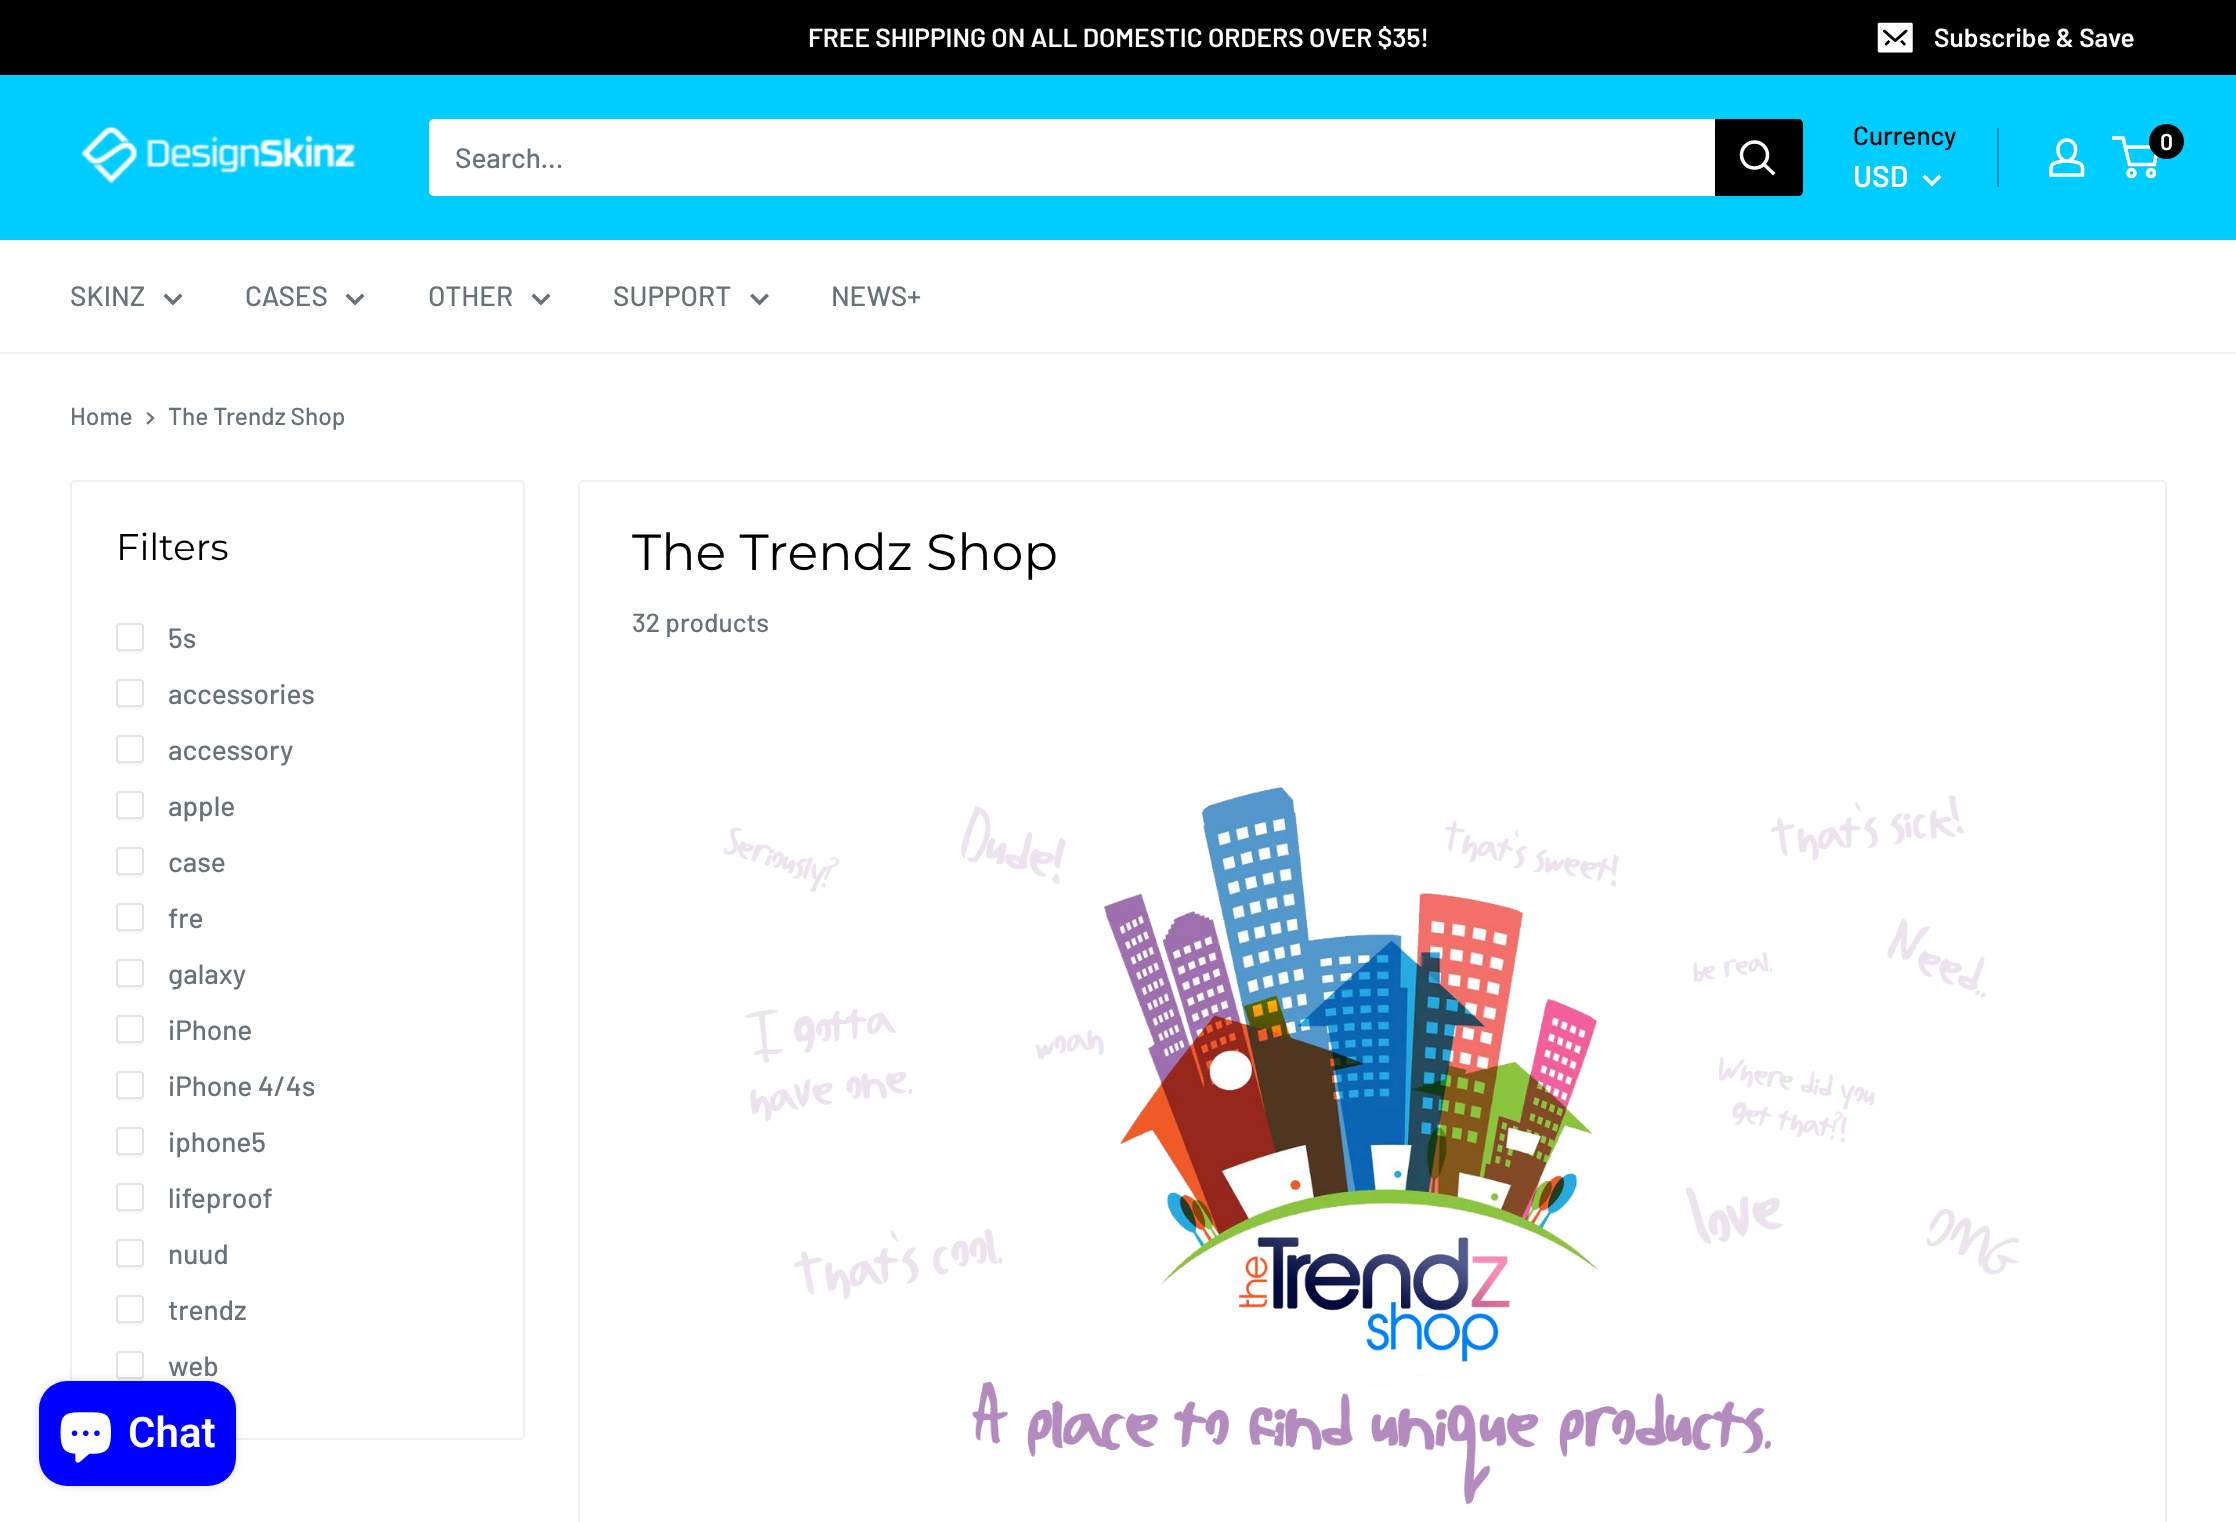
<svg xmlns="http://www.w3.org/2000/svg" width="2236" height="1522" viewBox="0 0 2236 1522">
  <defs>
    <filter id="blur1" x="-50%" y="-200%" width="200%" height="500%"><feGaussianBlur stdDeviation="4.5"/></filter>
  </defs>
  <rect width="100%" height="100%" fill="#ffffff"/>
  <rect x="0" y="0" width="2236" height="75" fill="#000000"/>
  <text x="808" y="47" font-family="Barlow" font-size="26.25" font-weight="600" fill="#ffffff">FREE SHIPPING ON ALL DOMESTIC ORDERS OVER $35!</text>
  <image x="1877" y="22" width="36" height="31" href="img1.png"/>
  <text x="1934" y="47" font-family="Barlow" font-size="26.25" font-weight="600" fill="#ffffff">Subscribe &amp; Save</text>
  <rect x="0" y="75" width="2236" height="165" fill="#00cdff"/>
  <image x="80" y="125" width="276" height="60" href="img2.png"/>
  <rect x="429" y="119" width="1374" height="77" rx="5" fill="#ffffff"/>
  <text x="455" y="168" font-family="Barlow" font-size="28" font-weight="500" fill="#677279">Search...</text>
  <path d="M1715 119H1798C1801 119 1803 121 1803 124V191C1803 194 1801 196 1798 196H1715Z" fill="#000000"/>
  <path d="M1773 173L1764 164.5" fill="none" stroke="#ffffff" stroke-width="3.5" stroke-linecap="square"/>
  <circle cx="1754.5" cy="155" r="13" fill="none" stroke="#ffffff" stroke-width="3.5"/>
  <text x="1853" y="145" font-family="Barlow" font-size="26.25" font-weight="500" fill="#000000">Currency</text>
  <rect x="1997" y="128" width="2" height="59" fill="#0090b3"/>
  <text x="1853" y="187" font-family="Barlow" font-size="30" font-weight="600" fill="#ffffff">USD</text>
  <path d="M1939 177L1932 184L1925 177" fill="none" stroke="#ffffff" stroke-width="3.5" stroke-linecap="square"/>
  <image x="2049" y="138" width="36" height="39" href="img3.png"/>
  <circle cx="2131.5" cy="173" r="3.5" fill="none" stroke="#ffffff" stroke-width="3.5"/>
  <circle cx="2151" cy="173" r="3.5" fill="none" stroke="#ffffff" stroke-width="3.5"/>
  <path d="M2125 147H2157L2154.5 164.5H2129.5L2123 138H2112" fill="none" stroke="#ffffff" stroke-width="3.5"/>
  <circle cx="2166.5" cy="141.5" r="17.5" fill="#000000"/>
  <text x="2160" y="150" font-family="Barlow" font-size="23" font-weight="600" fill="#ffffff">0</text>
  <rect x="0" y="352" width="2236" height="2" fill="#f0f0f0"/>
  <text x="70" y="306" font-family="Barlow" font-size="28" font-weight="500" fill="#677279">SKINZ</text>
  <path d="M180 296L173 303L166 296" fill="none" stroke="#677279" stroke-width="3.5" stroke-linecap="square"/>
  <text x="245" y="306" font-family="Barlow" font-size="28" font-weight="500" fill="#677279">CASES</text>
  <path d="M362 296L355 303L348 296" fill="none" stroke="#677279" stroke-width="3.5" stroke-linecap="square"/>
  <text x="428" y="306" font-family="Barlow" font-size="28" font-weight="500" fill="#677279">OTHER</text>
  <path d="M548 296L541 303L534 296" fill="none" stroke="#677279" stroke-width="3.5" stroke-linecap="square"/>
  <text x="613" y="306" font-family="Barlow" font-size="28" font-weight="500" fill="#677279">SUPPORT</text>
  <path d="M766.5 296L759.5 303L752.5 296" fill="none" stroke="#677279" stroke-width="3.5" stroke-linecap="square"/>
  <text x="831" y="306" font-family="Barlow" font-size="28" font-weight="500" fill="#677279">NEWS+</text>
  <text x="70" y="425" font-family="Barlow" font-size="24.5" font-weight="500" fill="#677279">Home</text>
  <path d="M148 413.5L153 418L148 423" fill="none" stroke="#677279" stroke-width="2.3" stroke-linecap="square"/>
  <text x="168" y="425" font-family="Barlow" font-size="24.5" font-weight="500" fill="#677279">The Trendz Shop</text>
  <rect x="71" y="481" width="453" height="958" rx="4" fill="none" stroke="#f0f0f0" stroke-width="2"/>
  <text x="116" y="560" font-family="Montserrat" font-size="37" fill="#000000">Filters</text>
  <path d="M116 649.5C116 651.5 118 653 120 653H140C142 653 144 651 144 649V629L143.5 627V647.5C143.5 649.5 142 651 140 651H119C117.5 651 116.5 650.5 116 649.5Z" fill="#f4f4f4"/>
  <rect x="117" y="624" width="26" height="26" rx="3" fill="#ffffff" stroke="#e3e3e3" stroke-width="2"/>
  <text x="168" y="648" font-family="Barlow" font-size="28" font-weight="500" fill="#677279">5s</text>
  <path d="M116 705.5C116 707.5 118 709 120 709H140C142 709 144 707 144 705V685L143.5 683V703.5C143.5 705.5 142 707 140 707H119C117.5 707 116.5 706.5 116 705.5Z" fill="#f4f4f4"/>
  <rect x="117" y="680" width="26" height="26" rx="3" fill="#ffffff" stroke="#e3e3e3" stroke-width="2"/>
  <text x="168" y="704" font-family="Barlow" font-size="28" font-weight="500" fill="#677279">accessories</text>
  <path d="M116 761.5C116 763.5 118 765 120 765H140C142 765 144 763 144 761V741L143.5 739V759.5C143.5 761.5 142 763 140 763H119C117.5 763 116.5 762.5 116 761.5Z" fill="#f4f4f4"/>
  <rect x="117" y="736" width="26" height="26" rx="3" fill="#ffffff" stroke="#e3e3e3" stroke-width="2"/>
  <text x="168" y="760" font-family="Barlow" font-size="28" font-weight="500" fill="#677279">accessory</text>
  <path d="M116 817.5C116 819.5 118 821 120 821H140C142 821 144 819 144 817V797L143.5 795V815.5C143.5 817.5 142 819 140 819H119C117.5 819 116.5 818.5 116 817.5Z" fill="#f4f4f4"/>
  <rect x="117" y="792" width="26" height="26" rx="3" fill="#ffffff" stroke="#e3e3e3" stroke-width="2"/>
  <text x="168" y="816" font-family="Barlow" font-size="28" font-weight="500" fill="#677279">apple</text>
  <path d="M116 873.5C116 875.5 118 877 120 877H140C142 877 144 875 144 873V853L143.5 851V871.5C143.5 873.5 142 875 140 875H119C117.5 875 116.5 874.5 116 873.5Z" fill="#f4f4f4"/>
  <rect x="117" y="848" width="26" height="26" rx="3" fill="#ffffff" stroke="#e3e3e3" stroke-width="2"/>
  <text x="168" y="872" font-family="Barlow" font-size="28" font-weight="500" fill="#677279">case</text>
  <path d="M116 929.5C116 931.5 118 933 120 933H140C142 933 144 931 144 929V909L143.5 907V927.5C143.5 929.5 142 931 140 931H119C117.5 931 116.5 930.5 116 929.5Z" fill="#f4f4f4"/>
  <rect x="117" y="904" width="26" height="26" rx="3" fill="#ffffff" stroke="#e3e3e3" stroke-width="2"/>
  <text x="168" y="928" font-family="Barlow" font-size="28" font-weight="500" fill="#677279">fre</text>
  <path d="M116 985.5C116 987.5 118 989 120 989H140C142 989 144 987 144 985V965L143.5 963V983.5C143.5 985.5 142 987 140 987H119C117.5 987 116.5 986.5 116 985.5Z" fill="#f4f4f4"/>
  <rect x="117" y="960" width="26" height="26" rx="3" fill="#ffffff" stroke="#e3e3e3" stroke-width="2"/>
  <text x="168" y="984" font-family="Barlow" font-size="28" font-weight="500" fill="#677279">galaxy</text>
  <path d="M116 1041.5C116 1043.5 118 1045 120 1045H140C142 1045 144 1043 144 1041V1021L143.5 1019V1039.5C143.5 1041.5 142 1043 140 1043H119C117.5 1043 116.5 1042.5 116 1041.5Z" fill="#f4f4f4"/>
  <rect x="117" y="1016" width="26" height="26" rx="3" fill="#ffffff" stroke="#e3e3e3" stroke-width="2"/>
  <text x="168" y="1040" font-family="Barlow" font-size="28" font-weight="500" fill="#677279">iPhone</text>
  <path d="M116 1097.5C116 1099.5 118 1101 120 1101H140C142 1101 144 1099 144 1097V1077L143.5 1075V1095.5C143.5 1097.5 142 1099 140 1099H119C117.5 1099 116.5 1098.5 116 1097.5Z" fill="#f4f4f4"/>
  <rect x="117" y="1072" width="26" height="26" rx="3" fill="#ffffff" stroke="#e3e3e3" stroke-width="2"/>
  <text x="168" y="1096" font-family="Barlow" font-size="28" font-weight="500" fill="#677279">iPhone 4/4s</text>
  <path d="M116 1153.5C116 1155.5 118 1157 120 1157H140C142 1157 144 1155 144 1153V1133L143.5 1131V1151.5C143.5 1153.5 142 1155 140 1155H119C117.5 1155 116.5 1154.5 116 1153.5Z" fill="#f4f4f4"/>
  <rect x="117" y="1128" width="26" height="26" rx="3" fill="#ffffff" stroke="#e3e3e3" stroke-width="2"/>
  <text x="168" y="1152" font-family="Barlow" font-size="28" font-weight="500" fill="#677279">iphone5</text>
  <path d="M116 1209.5C116 1211.5 118 1213 120 1213H140C142 1213 144 1211 144 1209V1189L143.5 1187V1207.5C143.5 1209.5 142 1211 140 1211H119C117.5 1211 116.5 1210.5 116 1209.5Z" fill="#f4f4f4"/>
  <rect x="117" y="1184" width="26" height="26" rx="3" fill="#ffffff" stroke="#e3e3e3" stroke-width="2"/>
  <text x="168" y="1208" font-family="Barlow" font-size="28" font-weight="500" fill="#677279">lifeproof</text>
  <path d="M116 1265.5C116 1267.5 118 1269 120 1269H140C142 1269 144 1267 144 1265V1245L143.5 1243V1263.5C143.5 1265.5 142 1267 140 1267H119C117.5 1267 116.5 1266.5 116 1265.5Z" fill="#f4f4f4"/>
  <rect x="117" y="1240" width="26" height="26" rx="3" fill="#ffffff" stroke="#e3e3e3" stroke-width="2"/>
  <text x="168" y="1264" font-family="Barlow" font-size="28" font-weight="500" fill="#677279">nuud</text>
  <path d="M116 1321.5C116 1323.5 118 1325 120 1325H140C142 1325 144 1323 144 1321V1301L143.5 1299V1319.5C143.5 1321.5 142 1323 140 1323H119C117.5 1323 116.5 1322.5 116 1321.5Z" fill="#f4f4f4"/>
  <rect x="117" y="1296" width="26" height="26" rx="3" fill="#ffffff" stroke="#e3e3e3" stroke-width="2"/>
  <text x="168" y="1320" font-family="Barlow" font-size="28" font-weight="500" fill="#677279">trendz</text>
  <path d="M116 1377.5C116 1379.5 118 1381 120 1381H140C142 1381 144 1379 144 1377V1357L143.5 1355V1375.5C143.5 1377.5 142 1379 140 1379H119C117.5 1379 116.5 1378.5 116 1377.5Z" fill="#f4f4f4"/>
  <rect x="117" y="1352" width="26" height="26" rx="3" fill="#ffffff" stroke="#e3e3e3" stroke-width="2"/>
  <text x="168" y="1376" font-family="Barlow" font-size="28" font-weight="500" fill="#677279">web</text>
  <rect x="579" y="481" width="1587" height="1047" rx="4" fill="none" stroke="#f0f0f0" stroke-width="2"/>
  <text x="632" y="570" font-family="Montserrat" font-size="50.75" fill="#000000">The Trendz Shop</text>
  <text x="632" y="632" font-family="Barlow" font-size="26.25" font-weight="500" fill="#677279">32 products</text>
  <image x="723" y="787" width="1297" height="718" href="img4.png"/>
  <rect x="39" y="1381" width="197" height="105" rx="28" fill="#000000" fill-opacity="0.15" filter="url(#blur1)"/>
  <rect x="39" y="1381" width="197" height="105" rx="28" fill="#0000ff"/>
  <image x="60" y="1412" width="51" height="51" href="img5.png"/>
  <text x="128" y="1447" font-family="Roboto" font-size="42" font-weight="600" fill="#ffffff">Chat</text>
</svg>
